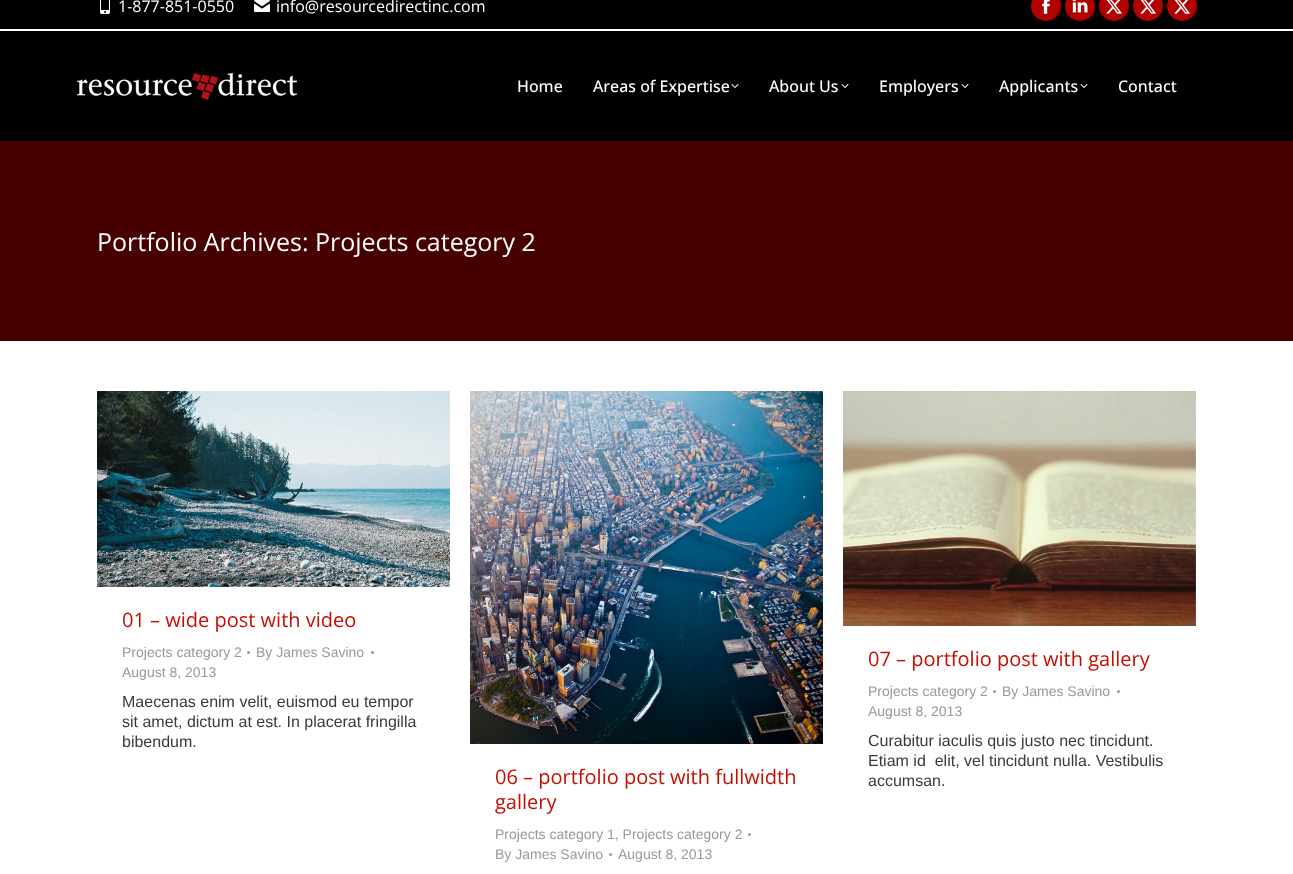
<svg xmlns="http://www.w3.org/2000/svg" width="1293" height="874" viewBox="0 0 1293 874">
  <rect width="100%" height="100%" fill="#ffffff"/>
  <rect x="0" y="0" width="1293" height="141" fill="#000000"/>
  <image x="100" y="0" width="10" height="14" href="img1.png"/>
  <text x="118" y="12" font-family="Open Sans" font-size="16" fill="#ffffff">1-877-851-0550</text>
  <image x="254" y="0" width="16" height="12" href="img2.png"/>
  <text x="276" y="12" font-family="Open Sans" font-size="16" fill="#ffffff">info@resourcedirectinc.com</text>
  <circle cx="1046" cy="6" r="15" fill="#b20101"/>
  <image x="1042" y="0" width="8" height="14" href="img3.png"/>
  <circle cx="1080" cy="6" r="15" fill="#b20101"/>
  <image x="1072" y="0" width="16" height="13" href="img4.png"/>
  <circle cx="1114" cy="6" r="15" fill="#b20101"/>
  <image x="1106" y="0" width="16" height="14" href="img5.png"/>
  <circle cx="1148" cy="6" r="15" fill="#b20101"/>
  <image x="1140" y="0" width="16" height="14" href="img5.png"/>
  <circle cx="1182" cy="6" r="15" fill="#b20101"/>
  <image x="1174" y="0" width="16" height="14" href="img5.png"/>
  <rect x="0" y="29" width="1293" height="2" fill="#ffffff"/>
  <image x="77" y="73" width="220" height="27" href="img6.png"/>
  <text x="517" y="92" font-family="Open Sans" font-size="16" font-weight="500" fill="#ffffff">Home</text>
  <text x="593" y="92" font-family="Open Sans" font-size="16" font-weight="500" fill="#ffffff">Areas of Expertise</text>
  <image x="731" y="84" width="8" height="4" href="img7.png"/>
  <text x="769" y="92" font-family="Open Sans" font-size="16" font-weight="500" fill="#ffffff">About Us</text>
  <image x="841" y="84" width="8" height="4" href="img7.png"/>
  <text x="879" y="92" font-family="Open Sans" font-size="16" font-weight="500" fill="#ffffff">Employers</text>
  <image x="961" y="84" width="8" height="4" href="img7.png"/>
  <text x="999" y="92" font-family="Open Sans" font-size="16" font-weight="500" fill="#ffffff">Applicants</text>
  <image x="1080" y="84" width="8" height="4" href="img7.png"/>
  <text x="1118" y="92" font-family="Open Sans" font-size="16" font-weight="500" fill="#ffffff">Contact</text>
  <rect x="0" y="141" width="1293" height="200" fill="#470000"/>
  <text x="97" y="251" font-family="Open Sans" font-size="25" fill="#ffffff">Portfolio Archives: Projects category 2</text>
  <image x="97" y="391" width="353" height="196" href="img8.png"/>
  <text x="122" y="627" font-family="Open Sans" font-size="20" fill="#c40e01">01 – wide post with video</text>
  <text x="122" y="657" font-family="Liberation Sans" font-size="14" fill="#999999">Projects category 2</text>
  <circle cx="248.5" cy="652.5" r="1.5" fill="#999999"/>
  <text x="256" y="657" font-family="Liberation Sans" font-size="14" fill="#999999">By James Savino</text>
  <circle cx="372.5" cy="652.5" r="1.5" fill="#999999"/>
  <text x="122" y="677" font-family="Liberation Sans" font-size="14" fill="#999999">August 8, 2013</text>
  <text x="122" y="707" font-family="Liberation Sans" font-size="16" fill="#3a3a3a">Maecenas enim velit, euismod eu tempor</text>
  <text x="122" y="727" font-family="Liberation Sans" font-size="16" fill="#3a3a3a">sit amet, dictum at est. In placerat fringilla</text>
  <text x="122" y="747" font-family="Liberation Sans" font-size="16" fill="#3a3a3a">bibendum.</text>
  <image x="843" y="391" width="353" height="235" href="img9.png"/>
  <text x="868" y="666" font-family="Open Sans" font-size="20" fill="#c40e01">07 – portfolio post with gallery</text>
  <text x="868" y="696" font-family="Liberation Sans" font-size="14" fill="#999999">Projects category 2</text>
  <circle cx="994.5" cy="691.5" r="1.5" fill="#999999"/>
  <text x="1002" y="696" font-family="Liberation Sans" font-size="14" fill="#999999">By James Savino</text>
  <circle cx="1118.5" cy="691.5" r="1.5" fill="#999999"/>
  <text x="868" y="716" font-family="Liberation Sans" font-size="14" fill="#999999">August 8, 2013</text>
  <text x="868" y="746" font-family="Liberation Sans" font-size="16" fill="#3a3a3a">Curabitur iaculis quis justo nec tincidunt.</text>
  <text x="868" y="766" font-family="Liberation Sans" font-size="16" fill="#3a3a3a" xml:space="preserve">Etiam id  elit, vel tincidunt nulla. Vestibulis</text>
  <text x="868" y="786" font-family="Liberation Sans" font-size="16" fill="#3a3a3a">accumsan.</text>
  <image x="470" y="391" width="353" height="353" href="img10.png"/>
  <text x="495" y="784" font-family="Open Sans" font-size="20" fill="#c40e01">06 – portfolio post with fullwidth</text>
  <text x="495" y="809" font-family="Open Sans" font-size="20" fill="#c40e01">gallery</text>
  <text x="495" y="839" font-family="Liberation Sans" font-size="14" fill="#999999">Projects category 1, Projects category 2</text>
  <circle cx="749.5" cy="834.5" r="1.5" fill="#999999"/>
  <text x="495" y="859" font-family="Liberation Sans" font-size="14" fill="#999999">By James Savino</text>
  <circle cx="610.5" cy="854.5" r="1.5" fill="#999999"/>
  <text x="618" y="859" font-family="Liberation Sans" font-size="14" fill="#999999">August 8, 2013</text>
</svg>
